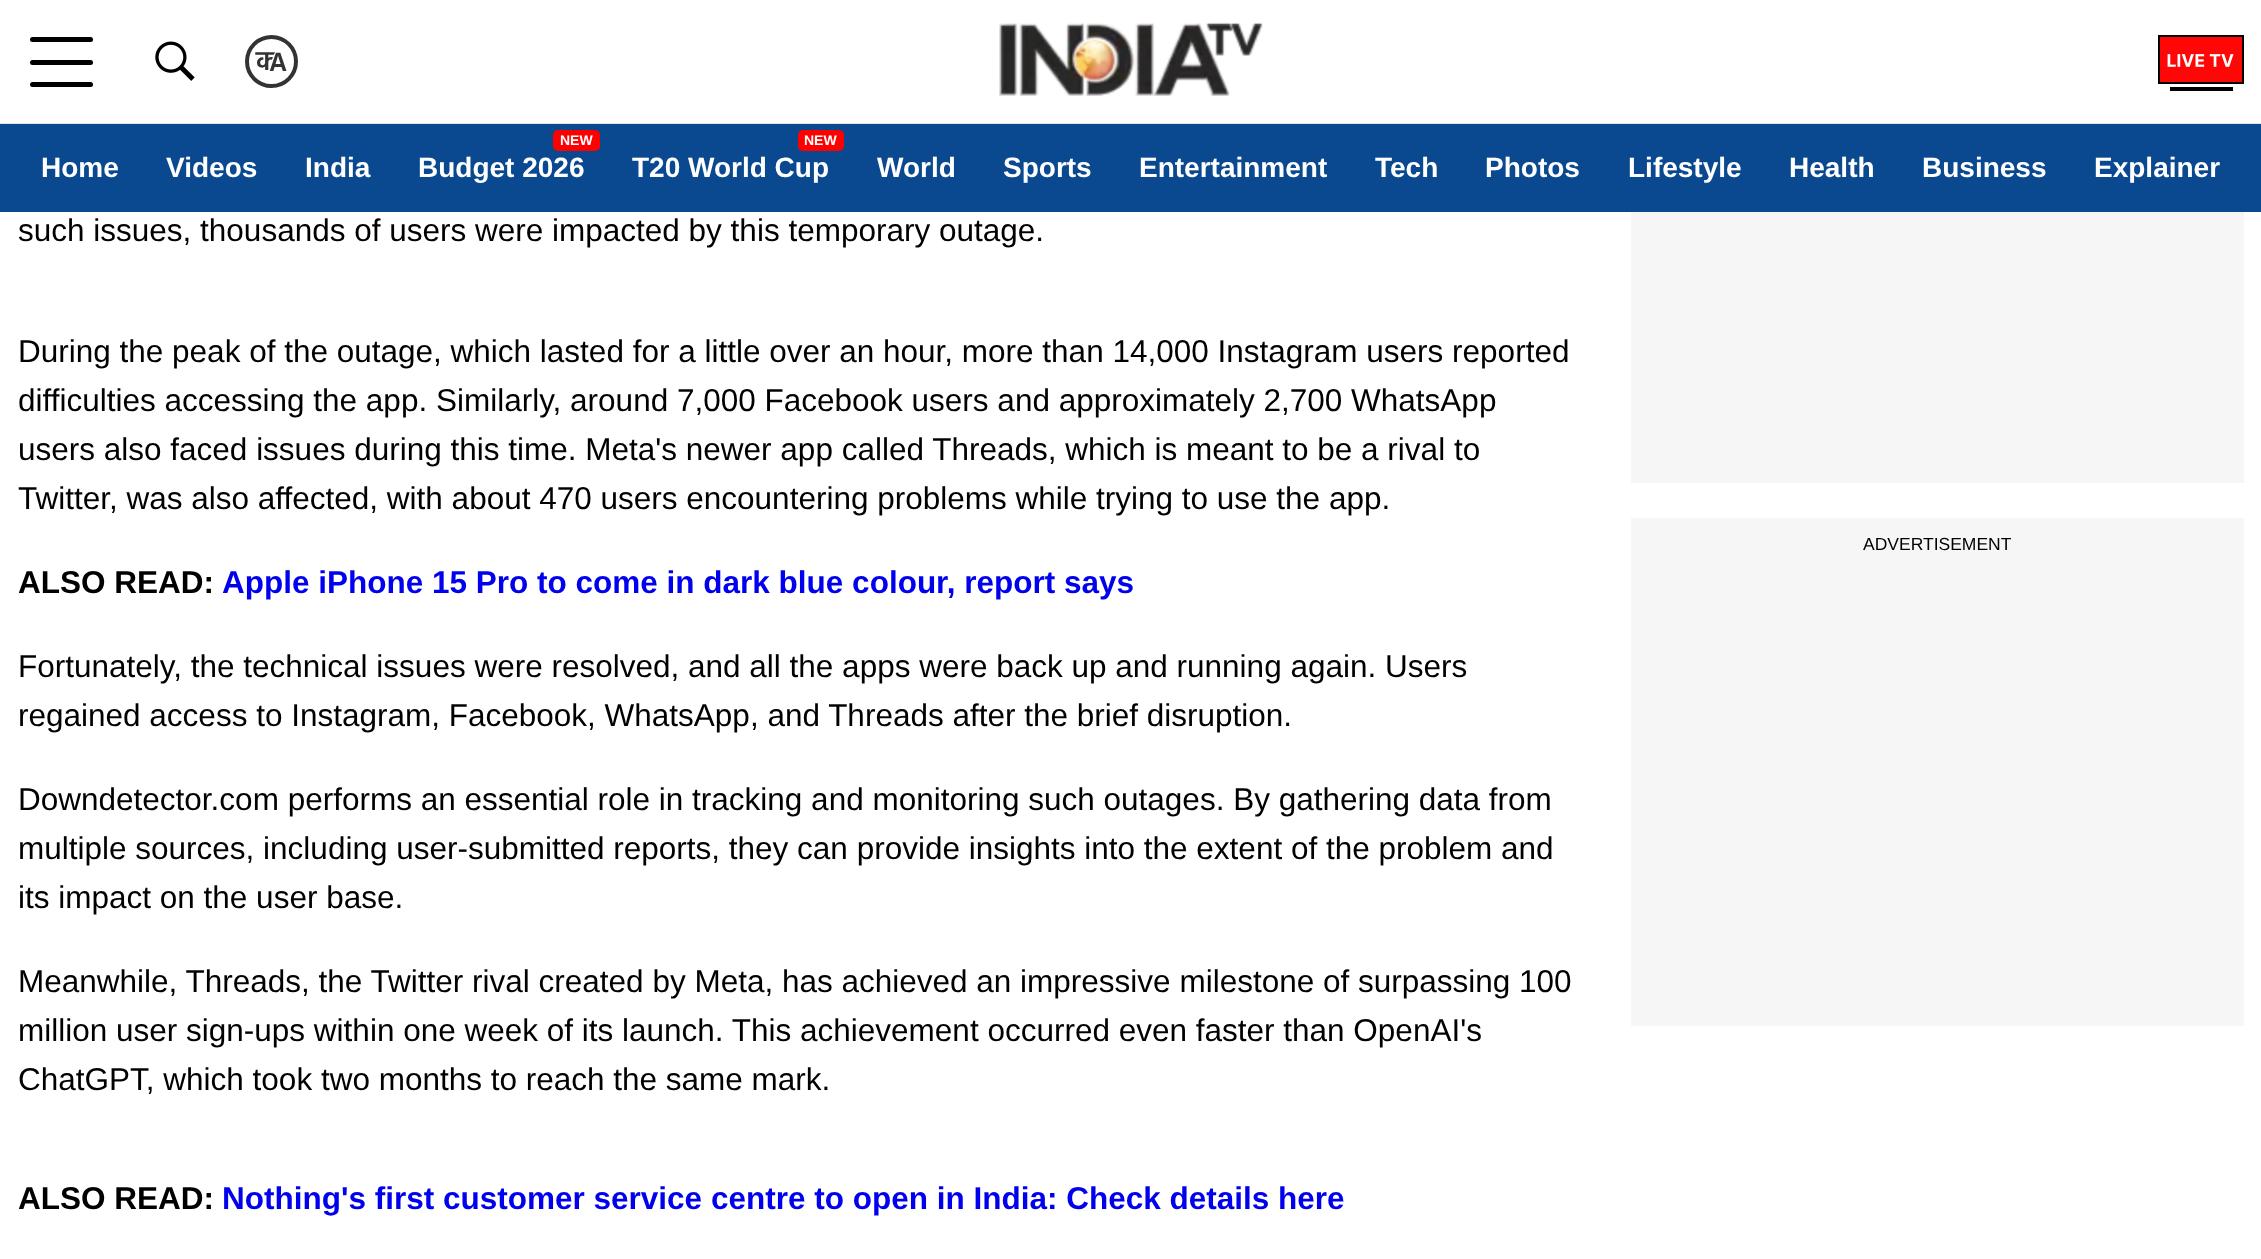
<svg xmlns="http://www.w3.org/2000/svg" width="2261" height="1259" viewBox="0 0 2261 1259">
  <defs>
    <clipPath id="clip1"><path d="M275 52L270 64.5L268.5 71.5H253L252.5 50.5Z"/></clipPath>
  </defs>
  <rect width="100%" height="100%" fill="#ffffff"/>
  <rect x="0" y="123" width="2261" height="1" fill="#e6e6e6"/>
  <rect x="30" y="37" width="63" height="5" rx="2.5" fill="#000000"/>
  <rect x="30" y="60" width="63" height="5" rx="2.5" fill="#000000"/>
  <rect x="30" y="82" width="63" height="5" rx="2.5" fill="#000000"/>
  <image x="155" y="41" width="40" height="40" href="img1.png"/>
  <circle cx="271.5" cy="61.5" r="24.5" fill="none" stroke="#333333" stroke-width="4"/>
  <text x="269" y="71" font-family="Hind" font-size="27" font-weight="600" fill="#333333">A</text>
  <g clip-path="url(#clip1)">
    <text x="256" y="70" font-family="Hind" font-size="27" font-weight="600" fill="#333333">क</text>
  </g>
  <image x="999" y="22" width="264" height="74" href="img2.png"/>
  <image x="2158" y="35" width="86" height="56" href="img3.png"/>
  <rect x="0" y="124" width="2261" height="88" fill="#0a4990"/>
  <text x="41" y="177" font-family="Liberation Sans" font-size="28" font-weight="bold" fill="#ffffff">Home</text>
  <text x="166" y="177" font-family="Liberation Sans" font-size="28" font-weight="bold" fill="#ffffff">Videos</text>
  <text x="305" y="177" font-family="Liberation Sans" font-size="28" font-weight="bold" fill="#ffffff">India</text>
  <rect x="553" y="130" width="47" height="21" rx="5" fill="#ff0000"/>
  <text x="560" y="145" font-family="Liberation Sans" font-size="14" font-weight="bold" fill="#ffffff">NEW</text>
  <text x="418" y="177" font-family="Liberation Sans" font-size="28" font-weight="bold" fill="#ffffff">Budget 2026</text>
  <rect x="798" y="130" width="46" height="21" rx="5" fill="#ff0000"/>
  <text x="804" y="145" font-family="Liberation Sans" font-size="14" font-weight="bold" fill="#ffffff">NEW</text>
  <text x="632" y="177" font-family="Liberation Sans" font-size="28" font-weight="bold" fill="#ffffff">T20 World Cup</text>
  <text x="877" y="177" font-family="Liberation Sans" font-size="28" font-weight="bold" fill="#ffffff">World</text>
  <text x="1003" y="177" font-family="Liberation Sans" font-size="28" font-weight="bold" fill="#ffffff">Sports</text>
  <text x="1139" y="177" font-family="Liberation Sans" font-size="28" font-weight="bold" fill="#ffffff">Entertainment</text>
  <text x="1375" y="177" font-family="Liberation Sans" font-size="28" font-weight="bold" fill="#ffffff">Tech</text>
  <text x="1485" y="177" font-family="Liberation Sans" font-size="28" font-weight="bold" fill="#ffffff">Photos</text>
  <text x="1628" y="177" font-family="Liberation Sans" font-size="28" font-weight="bold" fill="#ffffff">Lifestyle</text>
  <text x="1789" y="177" font-family="Liberation Sans" font-size="28" font-weight="bold" fill="#ffffff">Health</text>
  <text x="1922" y="177" font-family="Liberation Sans" font-size="28" font-weight="bold" fill="#ffffff">Business</text>
  <text x="2094" y="177" font-family="Liberation Sans" font-size="28" font-weight="bold" fill="#ffffff">Explainer</text>
  <text x="18" y="241" font-family="Liberation Sans" font-size="31.5" fill="#000000">such issues, thousands of users were impacted by this temporary outage.</text>
  <text x="18" y="362" font-family="Liberation Sans" font-size="31.5" fill="#000000">During the peak of the outage, which lasted for a little over an hour, more than 14,000 Instagram users reported</text>
  <text x="18" y="411" font-family="Liberation Sans" font-size="31.5" fill="#000000">difficulties accessing the app. Similarly, around 7,000 Facebook users and approximately 2,700 WhatsApp</text>
  <text x="18" y="460" font-family="Liberation Sans" font-size="31.5" fill="#000000">users also faced issues during this time. Meta's newer app called Threads, which is meant to be a rival to</text>
  <text x="18" y="509" font-family="Liberation Sans" font-size="31.5" fill="#000000">Twitter, was also affected, with about 470 users encountering problems while trying to use the app.</text>
  <text x="18" y="593" font-family="Liberation Sans" font-size="31.5" font-weight="bold" fill="#000000">ALSO READ:</text>
  <text x="222" y="593" font-family="Liberation Sans" font-size="31.5" font-weight="bold" fill="#0000ee">Apple iPhone 15 Pro to come in dark blue colour, report says</text>
  <text x="18" y="677" font-family="Liberation Sans" font-size="31.5" fill="#000000">Fortunately, the technical issues were resolved, and all the apps were back up and running again. Users</text>
  <text x="18" y="726" font-family="Liberation Sans" font-size="31.5" fill="#000000">regained access to Instagram, Facebook, WhatsApp, and Threads after the brief disruption.</text>
  <text x="18" y="810" font-family="Liberation Sans" font-size="31.5" fill="#000000">Downdetector.com performs an essential role in tracking and monitoring such outages. By gathering data from</text>
  <text x="18" y="859" font-family="Liberation Sans" font-size="31.5" fill="#000000">multiple sources, including user-submitted reports, they can provide insights into the extent of the problem and</text>
  <text x="18" y="908" font-family="Liberation Sans" font-size="31.5" fill="#000000">its impact on the user base.</text>
  <text x="18" y="992" font-family="Liberation Sans" font-size="31.5" fill="#000000">Meanwhile, Threads, the Twitter rival created by Meta, has achieved an impressive milestone of surpassing 100</text>
  <text x="18" y="1041" font-family="Liberation Sans" font-size="31.5" fill="#000000">million user sign-ups within one week of its launch. This achievement occurred even faster than OpenAI's</text>
  <text x="18" y="1090" font-family="Liberation Sans" font-size="31.5" fill="#000000">ChatGPT, which took two months to reach the same mark.</text>
  <text x="18" y="1209" font-family="Liberation Sans" font-size="31.5" font-weight="bold" fill="#000000">ALSO READ:</text>
  <text x="222" y="1209" font-family="Liberation Sans" font-size="31.5" font-weight="bold" fill="#0000ee">Nothing's first customer service centre to open in India: Check details here</text>
  <rect x="1631" y="212" width="613" height="271" fill="#f6f6f6"/>
  <rect x="1631" y="518" width="613" height="508" fill="#f6f6f6"/>
  <text x="1863" y="550" font-family="Liberation Sans" font-size="17.5" fill="#000000">ADVERTISEMENT</text>
</svg>
